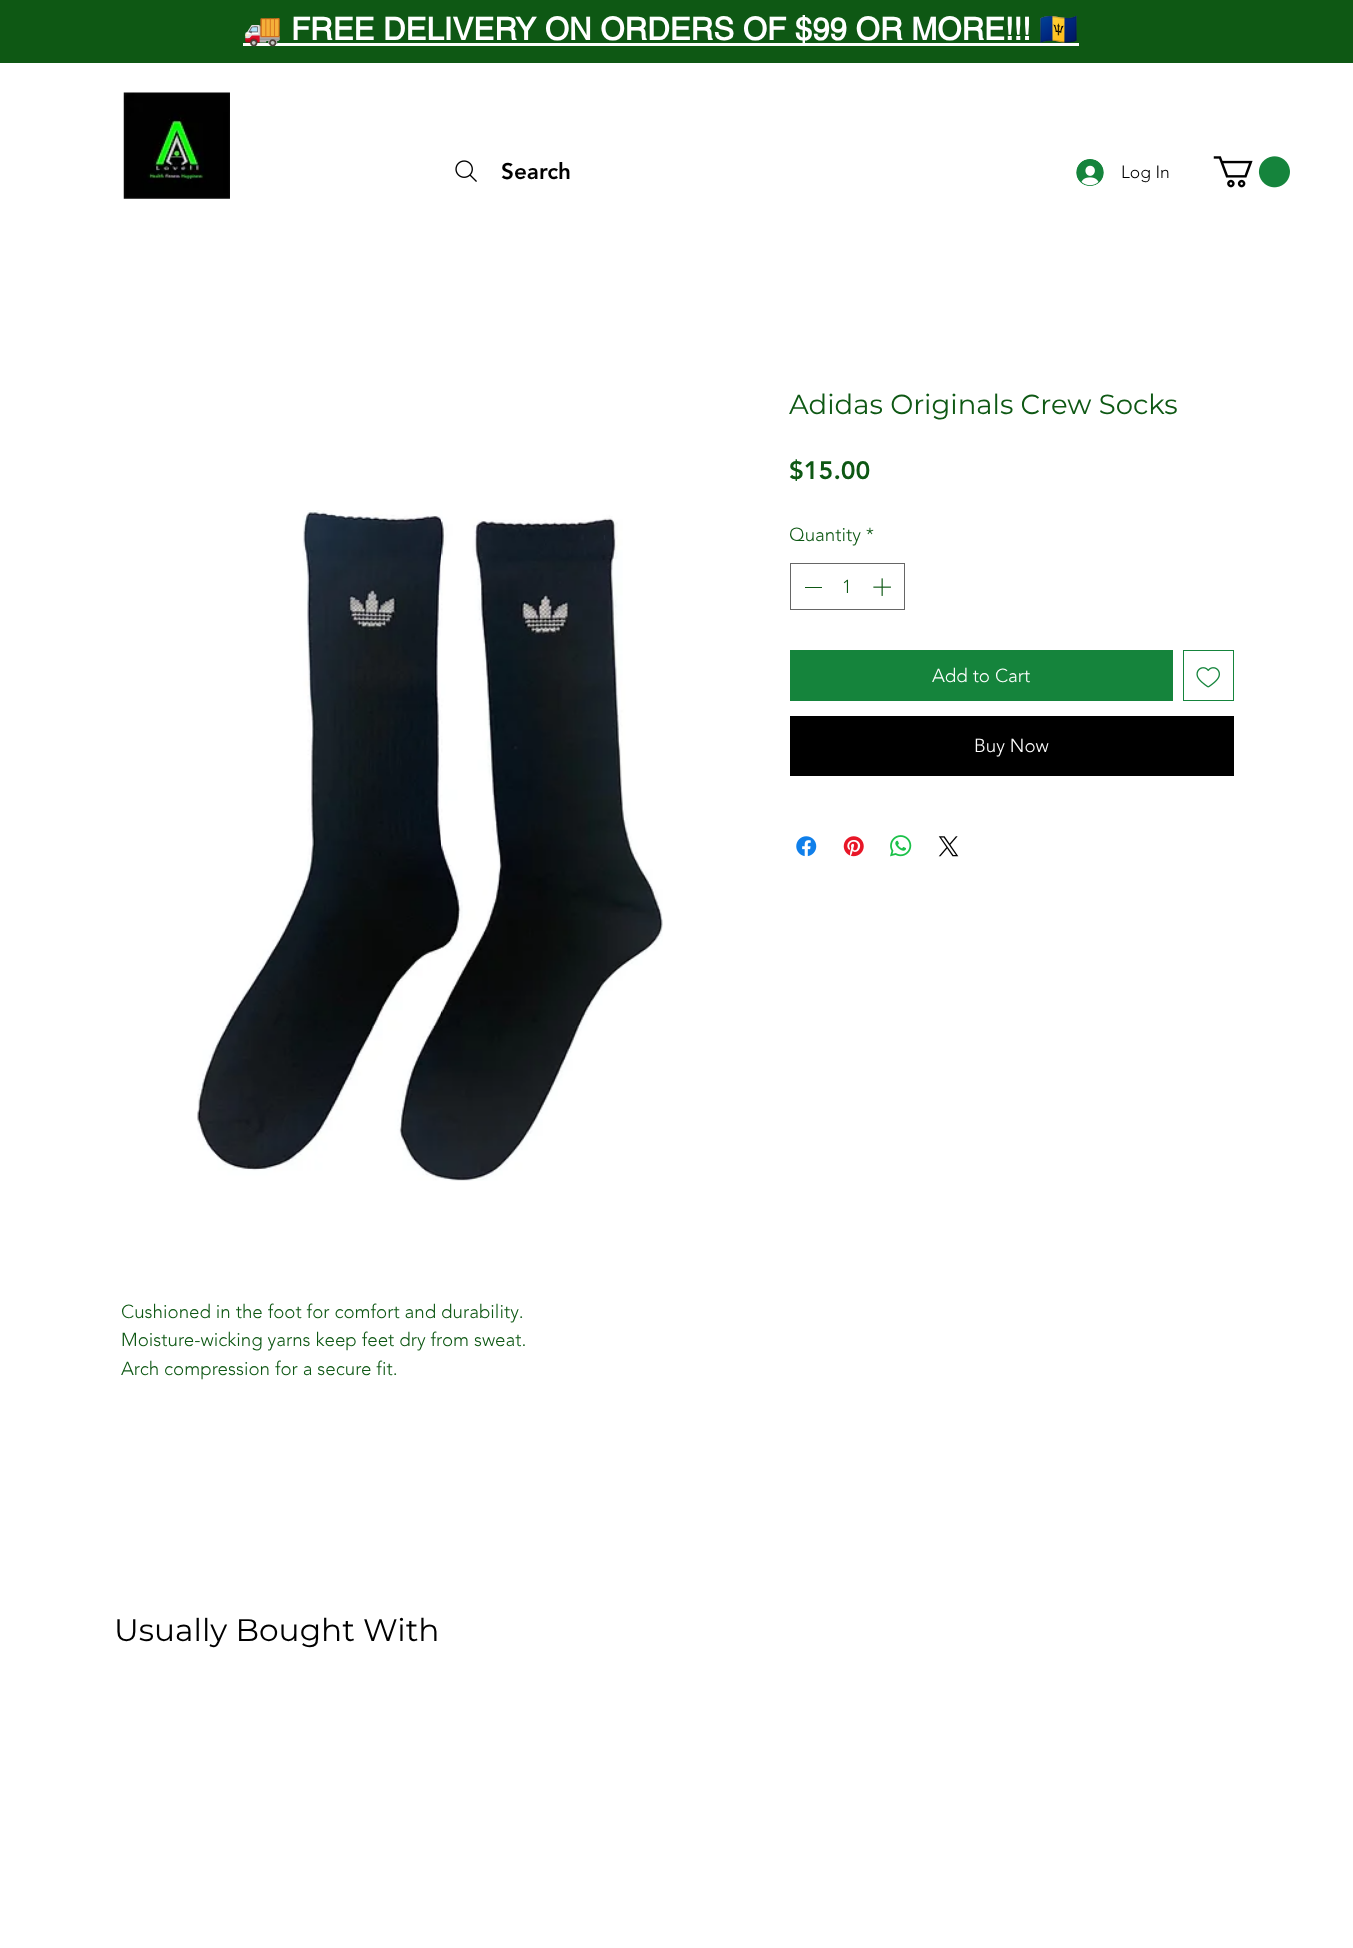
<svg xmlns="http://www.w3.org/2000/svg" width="1353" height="1948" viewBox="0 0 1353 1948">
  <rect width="100%" height="100%" fill="#ffffff"/>
  <rect x="0" y="0" width="1353" height="63" fill="#0e5814"/>
  <rect x="243" y="43" width="836" height="3" fill="#ffffff"/>
  <text x="243" y="40" font-family="Noto Color Emoji" font-size="31.25" font-weight="bold" fill="#ffffff">🚚</text>
  <text x="291" y="40" font-family="helvetica" font-size="31.25" font-weight="bold" fill="#ffffff">FREE DELIVERY ON ORDERS OF $99 OR MORE!!!</text>
  <text x="1039" y="40" font-family="Noto Color Emoji" font-size="31.25" font-weight="bold" fill="#ffffff">🇧🇧</text>
  <image x="123" y="92" width="107" height="107" href="img1.png"/>
  <image x="455" y="160" width="22" height="22" href="img2.png"/>
  <text x="501" y="179" font-family="'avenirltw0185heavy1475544'" font-size="22.5" font-weight="900" fill="#000000">Search</text>
  <image x="1076" y="159" width="28" height="27" href="img3.png"/>
  <text x="1121" y="178" font-family="'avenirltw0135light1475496'" font-size="17.5" font-weight="300" fill="#000000">Log In</text>
  <image x="1213" y="156" width="77" height="32" href="img4.png"/>
  <text x="789" y="414" font-family="Montserrat" font-size="27.5" fill="#0e5814">Adidas Originals Crew Socks</text>
  <text x="789" y="479" font-family="'avenirltw0185heavy1475544'" font-size="25" font-weight="900" fill="#0e5814">$15.00</text>
  <text x="789" y="541" font-family="'avenirltw0135light1475496'" font-size="18.75" font-weight="300" fill="#0e5814">Quantity *</text>
  <rect x="790.5" y="563.5" width="114" height="46" fill="none" stroke="#666666"/>
  <rect x="805" y="587" width="17" height="1" fill="#0e5814"/>
  <text x="842" y="593" font-family="'avenirltw0135light1475496'" font-size="18.75" font-weight="300" fill="#0e5814">1</text>
  <image x="873" y="578" width="18" height="18" href="img5.png"/>
  <rect x="790" y="650" width="383" height="51" fill="#15843c"/>
  <text x="932" y="682" font-family="'avenirltw0135light1475496'" font-size="18.75" font-weight="300" fill="#ffffff">Add to Cart</text>
  <rect x="1183.5" y="650.5" width="50" height="50" fill="none" stroke="#15843c"/>
  <image x="1196" y="667" width="24" height="21" href="img6.png"/>
  <rect x="790" y="716" width="444" height="60" fill="#000000"/>
  <text x="974" y="752" font-family="'avenirltw0135light1475496'" font-size="18.75" font-weight="300" fill="#ffffff">Buy Now</text>
  <image x="796" y="836" width="21" height="21" href="img7.png"/>
  <image x="843" y="836" width="21" height="21" href="img8.png"/>
  <image x="890" y="835" width="22" height="22" href="img9.png"/>
  <image x="938" y="836" width="21" height="21" href="img10.png"/>
  <image x="197" y="510" width="466" height="671" href="img11.png"/>
  <text x="121" y="1318" font-family="'avenirltw0135light1475496'" font-size="18.75" font-weight="300" fill="#0e5814">Cushioned in the foot for comfort and durability.</text>
  <text x="121" y="1346" font-family="'avenirltw0135light1475496'" font-size="18.75" font-weight="300" fill="#0e5814">Moisture-wicking yarns keep feet dry from sweat.</text>
  <text x="121" y="1375" font-family="'avenirltw0135light1475496'" font-size="18.75" font-weight="300" fill="#0e5814">Arch compression for a secure fit.</text>
  <text x="114" y="1641" font-family="Montserrat" font-size="31.25" fill="#000000">Usually Bought With</text>
</svg>
